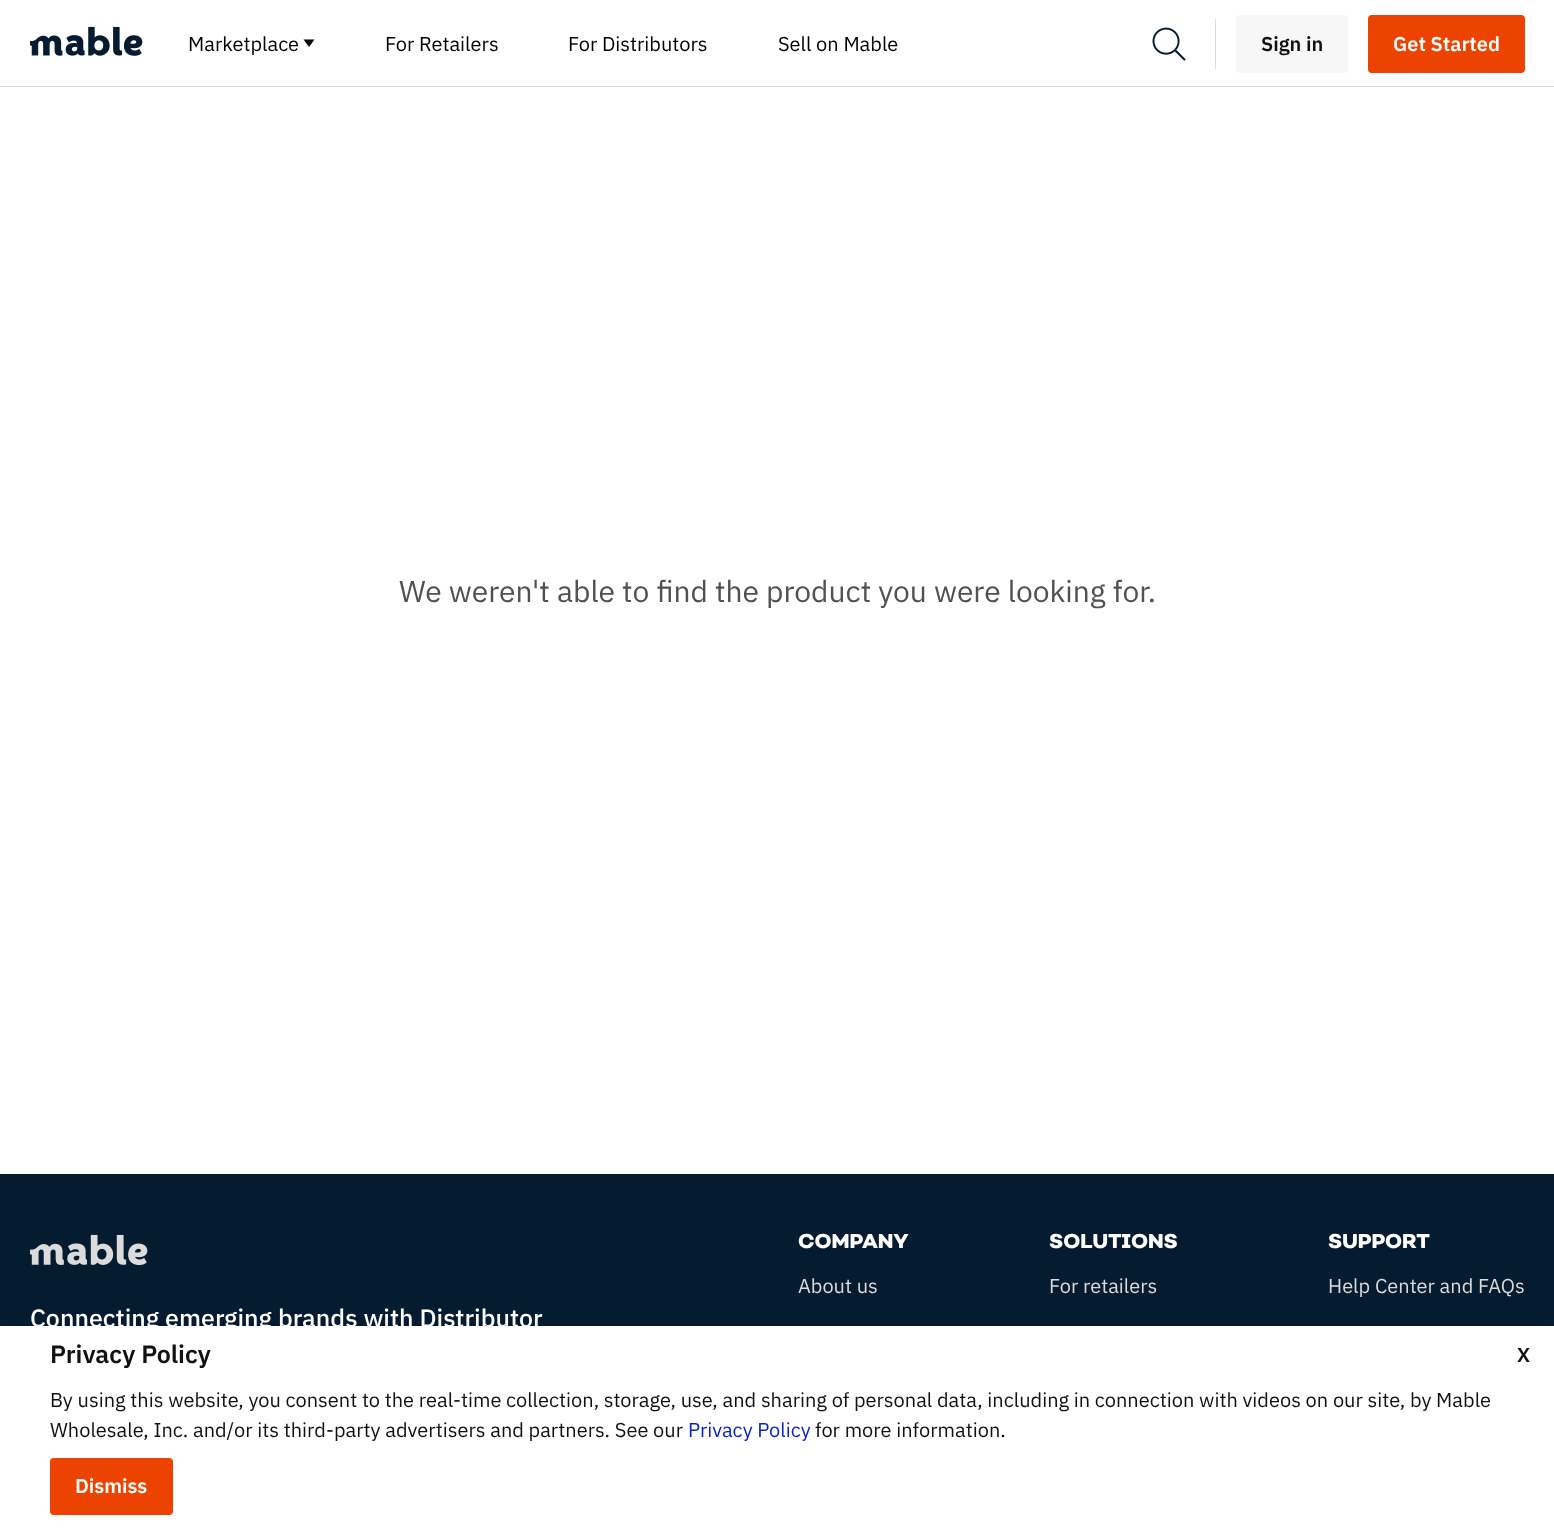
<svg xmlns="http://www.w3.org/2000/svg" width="1554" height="1535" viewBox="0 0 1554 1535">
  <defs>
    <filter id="blur1" x="-50%" y="-200%" width="200%" height="500%"><feGaussianBlur stdDeviation="7.5"/></filter>
  </defs>
  <rect width="100%" height="100%" fill="#ffffff"/>
  <rect x="0" y="86" width="1554" height="1" fill="#dbdbdb"/>
  <image x="30" y="26" width="113" height="30" href="img1.png"/>
  <text x="188" y="51" font-family="IBM Plex Sans" font-size="20" fill="#000000">Marketplace</text>
  <path d="M309 47L303.5 39.5H314.5Z" fill="#000000" fill-rule="evenodd"/>
  <text x="385" y="51" font-family="IBM Plex Sans" font-size="20" fill="#000000">For Retailers</text>
  <text x="568" y="51" font-family="IBM Plex Sans" font-size="20" fill="#000000">For Distributors</text>
  <text x="778" y="51" font-family="IBM Plex Sans" font-size="20" fill="#000000">Sell on Mable</text>
  <image x="1152" y="27" width="34" height="34" href="img2.png"/>
  <rect x="1215" y="19" width="1" height="50" fill="#dbdbdb"/>
  <rect x="1236" y="15" width="112" height="58" rx="4" fill="#f7f7f7"/>
  <text x="1261" y="51" font-family="IBM Plex Sans" font-size="20" font-weight="600" fill="#111111">Sign in</text>
  <rect x="1368" y="15" width="157" height="58" rx="4" fill="#ec4300"/>
  <text x="1393" y="51" font-family="IBM Plex Sans" font-size="20" font-weight="600" fill="#ffffff">Get Started</text>
  <text x="399" y="602" font-family="IBM Plex Sans" font-size="30" fill="#515151">We weren't able to find the product you were looking for.</text>
  <rect x="0" y="1174" width="1554" height="152" fill="#051b30"/>
  <text x="798" y="1248" font-family="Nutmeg" font-size="20" font-weight="800" fill="#ffffff">COMPANY</text>
  <text x="798" y="1293" font-family="IBM Plex Sans" font-size="20" fill="#dbdbdb">About us</text>
  <text x="1049" y="1248" font-family="Nutmeg" font-size="20" font-weight="800" fill="#ffffff">SOLUTIONS</text>
  <text x="1049" y="1293" font-family="IBM Plex Sans" font-size="20" fill="#dbdbdb">For retailers</text>
  <text x="1328" y="1248" font-family="Nutmeg" font-size="20" font-weight="800" fill="#ffffff">SUPPORT</text>
  <text x="1328" y="1293" font-family="IBM Plex Sans" font-size="20" fill="#dbdbdb">Help Center and FAQs</text>
  <image x="30" y="1234" width="118" height="32" href="img3.png"/>
  <text x="30" y="1327" font-family="IBM Plex Sans" font-size="25" font-weight="500" fill="#ffffff">Connecting emerging brands with Distributor</text>
  <rect x="0" y="1331" width="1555" height="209" fill="#000000" fill-opacity="0.13" filter="url(#blur1)"/>
  <rect x="0" y="1326" width="1554" height="209" fill="#ffffff"/>
  <text x="50" y="1363" font-family="IBM Plex Sans" font-size="25" font-weight="600" fill="#111111">Privacy Policy</text>
  <text x="50" y="1407" font-family="IBM Plex Sans" font-size="20" fill="#111111">By using this website, you consent to the real-time collection, storage, use, and sharing of personal data, including in connection with videos on our site, by Mable</text>
  <text x="50" y="1437" font-family="IBM Plex Sans" font-size="20" fill="#111111">Wholesale, Inc. and/or its third-party advertisers and partners. See our</text>
  <text x="688" y="1437" font-family="IBM Plex Sans" font-size="20" fill="#0a24cc">Privacy Policy</text>
  <text x="815" y="1437" font-family="IBM Plex Sans" font-size="20" fill="#111111">for more information.</text>
  <rect x="50" y="1458" width="123" height="57" rx="4" fill="#ec4300"/>
  <text x="75" y="1493" font-family="IBM Plex Sans" font-size="20" font-weight="600" fill="#ffffff">Dismiss</text>
  <text x="1517" y="1362" font-family="IBM Plex Sans" font-size="20" font-weight="600" fill="#111111">X</text>
</svg>
